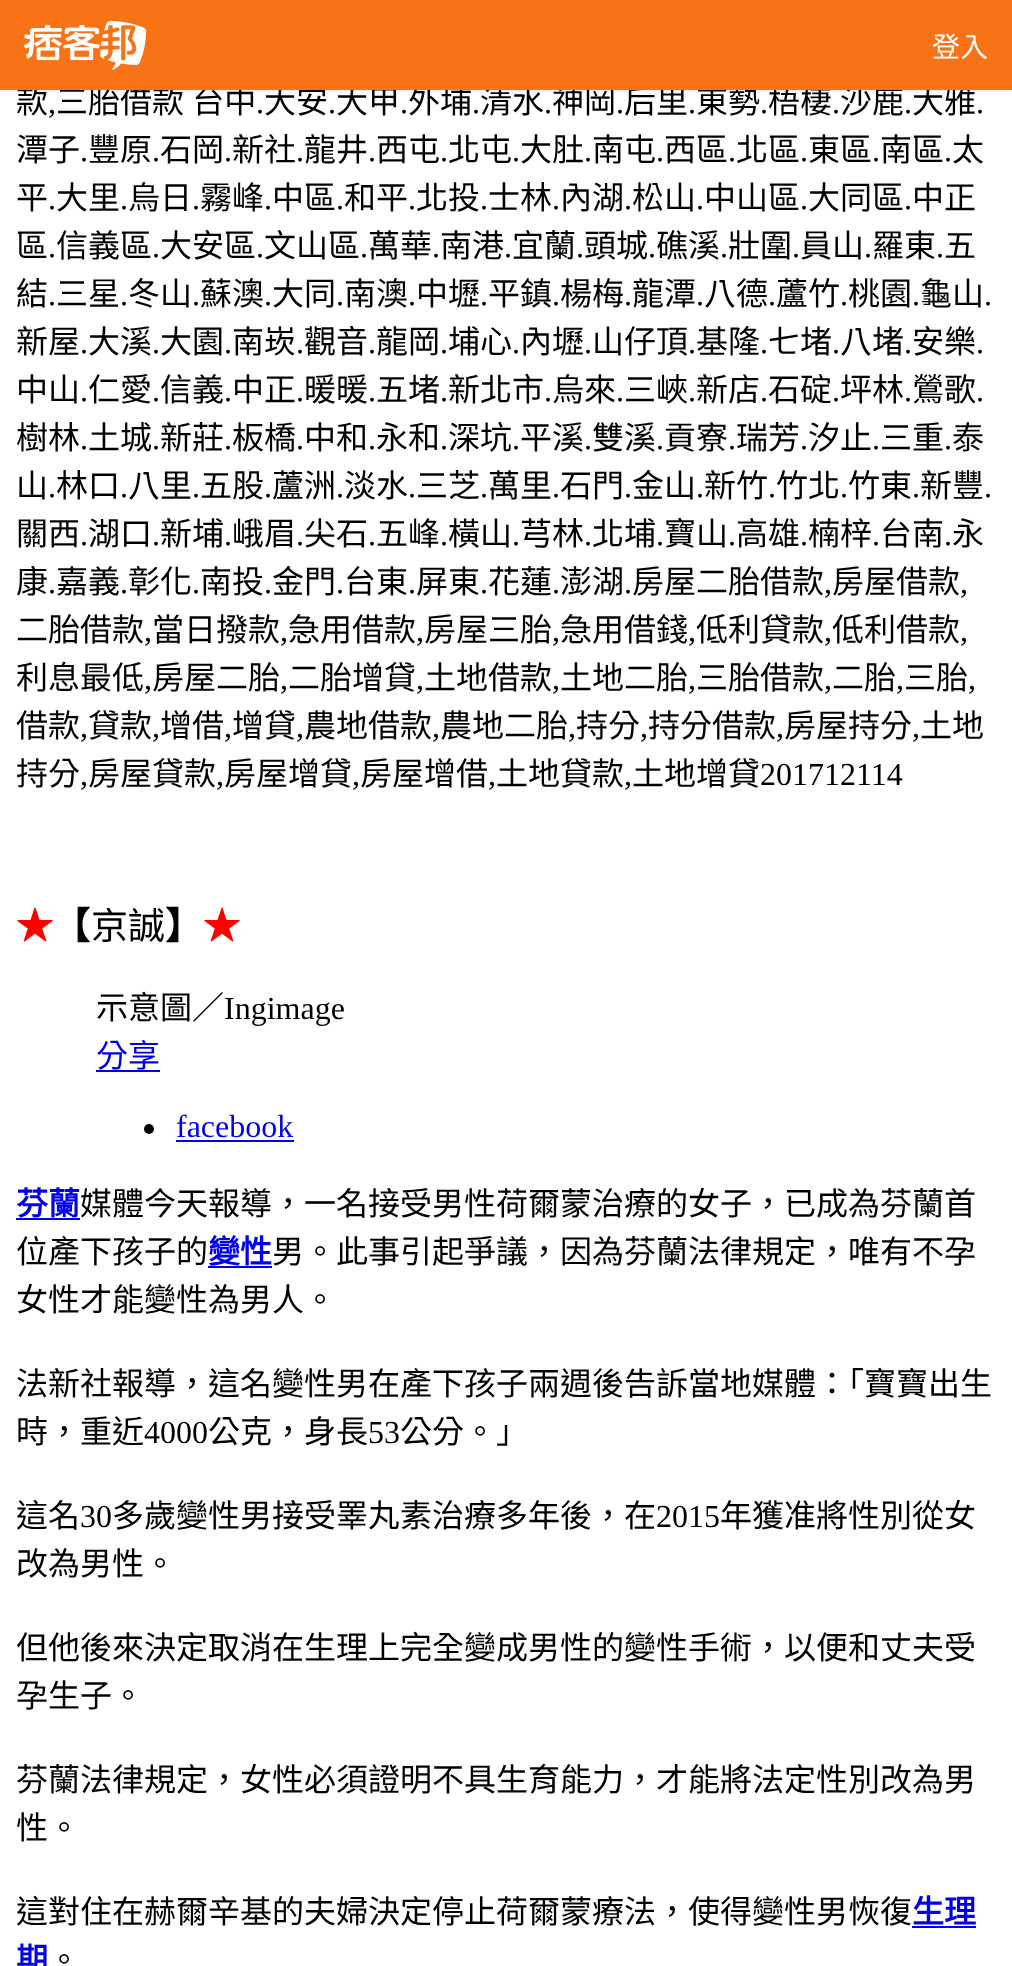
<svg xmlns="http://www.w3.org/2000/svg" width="1012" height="1966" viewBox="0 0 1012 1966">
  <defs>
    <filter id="blur1" x="-50%" y="-200%" width="200%" height="500%"><feGaussianBlur stdDeviation="2"/></filter>
  </defs>
  <rect width="100%" height="100%" fill="#ffffff"/>
  <rect x="0" y="2" width="1012" height="90" fill="#000000" fill-opacity="0.05" filter="url(#blur1)"/>
  <text x="16" y="113" font-family="Noto Sans CJK TC" font-size="32" fill="#000000">款</text>
  <text x="56" y="113" word-spacing="1" font-family="Noto Sans CJK TC" font-size="32" fill="#000000">三胎借款 台中</text>
  <text x="264" y="113" font-family="Noto Sans CJK TC" font-size="32" fill="#000000">大安</text>
  <text x="336" y="113" font-family="Noto Sans CJK TC" font-size="32" fill="#000000">大甲</text>
  <text x="408" y="113" font-family="Noto Sans CJK TC" font-size="32" fill="#000000">外埔</text>
  <text x="480" y="113" font-family="Noto Sans CJK TC" font-size="32" fill="#000000">清水</text>
  <text x="552" y="113" font-family="Noto Sans CJK TC" font-size="32" fill="#000000">神岡</text>
  <text x="624" y="113" font-family="Noto Sans CJK TC" font-size="32" fill="#000000">后里</text>
  <text x="696" y="113" font-family="Noto Sans CJK TC" font-size="32" fill="#000000">東勢</text>
  <text x="768" y="113" font-family="Noto Sans CJK TC" font-size="32" fill="#000000">梧棲</text>
  <text x="840" y="113" font-family="Noto Sans CJK TC" font-size="32" fill="#000000">沙鹿</text>
  <text x="912" y="113" font-family="Noto Sans CJK TC" font-size="32" fill="#000000">大雅</text>
  <rect x="0" y="0" width="1012" height="90" fill="#f97316"/>
  <image x="24" y="20" width="123" height="50" href="img1.png"/>
  <text x="932" y="57" font-family="Noto Sans CJK TC" font-size="28" fill="#ffffff">登入</text>
  <text x="48" y="113" font-family="Liberation Serif" font-size="32" fill="#000000">,</text>
  <text x="256" y="113" font-family="Liberation Serif" font-size="32" fill="#000000">.</text>
  <text x="328" y="113" font-family="Liberation Serif" font-size="32" fill="#000000">.</text>
  <text x="400" y="113" font-family="Liberation Serif" font-size="32" fill="#000000">.</text>
  <text x="472" y="113" font-family="Liberation Serif" font-size="32" fill="#000000">.</text>
  <text x="544" y="113" font-family="Liberation Serif" font-size="32" fill="#000000">.</text>
  <text x="616" y="113" font-family="Liberation Serif" font-size="32" fill="#000000">.</text>
  <text x="688" y="113" font-family="Liberation Serif" font-size="32" fill="#000000">.</text>
  <text x="760" y="113" font-family="Liberation Serif" font-size="32" fill="#000000">.</text>
  <text x="832" y="113" font-family="Liberation Serif" font-size="32" fill="#000000">.</text>
  <text x="904" y="113" font-family="Liberation Serif" font-size="32" fill="#000000">.</text>
  <text x="976" y="113" font-family="Liberation Serif" font-size="32" fill="#000000">.</text>
  <text x="16" y="161" font-family="Noto Sans CJK TC" font-size="32" fill="#000000">潭子</text>
  <text x="80" y="161" font-family="Liberation Serif" font-size="32" fill="#000000">.</text>
  <text x="88" y="161" font-family="Noto Sans CJK TC" font-size="32" fill="#000000">豐原</text>
  <text x="152" y="161" font-family="Liberation Serif" font-size="32" fill="#000000">.</text>
  <text x="160" y="161" font-family="Noto Sans CJK TC" font-size="32" fill="#000000">石岡</text>
  <text x="224" y="161" font-family="Liberation Serif" font-size="32" fill="#000000">.</text>
  <text x="232" y="161" font-family="Noto Sans CJK TC" font-size="32" fill="#000000">新社</text>
  <text x="296" y="161" font-family="Liberation Serif" font-size="32" fill="#000000">.</text>
  <text x="304" y="161" font-family="Noto Sans CJK TC" font-size="32" fill="#000000">龍井</text>
  <text x="368" y="161" font-family="Liberation Serif" font-size="32" fill="#000000">.</text>
  <text x="376" y="161" font-family="Noto Sans CJK TC" font-size="32" fill="#000000">西屯</text>
  <text x="440" y="161" font-family="Liberation Serif" font-size="32" fill="#000000">.</text>
  <text x="448" y="161" font-family="Noto Sans CJK TC" font-size="32" fill="#000000">北屯</text>
  <text x="512" y="161" font-family="Liberation Serif" font-size="32" fill="#000000">.</text>
  <text x="520" y="161" font-family="Noto Sans CJK TC" font-size="32" fill="#000000">大肚</text>
  <text x="584" y="161" font-family="Liberation Serif" font-size="32" fill="#000000">.</text>
  <text x="592" y="161" font-family="Noto Sans CJK TC" font-size="32" fill="#000000">南屯</text>
  <text x="656" y="161" font-family="Liberation Serif" font-size="32" fill="#000000">.</text>
  <text x="664" y="161" font-family="Noto Sans CJK TC" font-size="32" fill="#000000">西區</text>
  <text x="728" y="161" font-family="Liberation Serif" font-size="32" fill="#000000">.</text>
  <text x="736" y="161" font-family="Noto Sans CJK TC" font-size="32" fill="#000000">北區</text>
  <text x="800" y="161" font-family="Liberation Serif" font-size="32" fill="#000000">.</text>
  <text x="808" y="161" font-family="Noto Sans CJK TC" font-size="32" fill="#000000">東區</text>
  <text x="872" y="161" font-family="Liberation Serif" font-size="32" fill="#000000">.</text>
  <text x="880" y="161" font-family="Noto Sans CJK TC" font-size="32" fill="#000000">南區</text>
  <text x="944" y="161" font-family="Liberation Serif" font-size="32" fill="#000000">.</text>
  <text x="952" y="161" font-family="Noto Sans CJK TC" font-size="32" fill="#000000">太</text>
  <text x="16" y="209" font-family="Noto Sans CJK TC" font-size="32" fill="#000000">平</text>
  <text x="48" y="209" font-family="Liberation Serif" font-size="32" fill="#000000">.</text>
  <text x="56" y="209" font-family="Noto Sans CJK TC" font-size="32" fill="#000000">大里</text>
  <text x="120" y="209" font-family="Liberation Serif" font-size="32" fill="#000000">.</text>
  <text x="128" y="209" font-family="Noto Sans CJK TC" font-size="32" fill="#000000">烏日</text>
  <text x="192" y="209" font-family="Liberation Serif" font-size="32" fill="#000000">.</text>
  <text x="200" y="209" font-family="Noto Sans CJK TC" font-size="32" fill="#000000">霧峰</text>
  <text x="264" y="209" font-family="Liberation Serif" font-size="32" fill="#000000">.</text>
  <text x="272" y="209" font-family="Noto Sans CJK TC" font-size="32" fill="#000000">中區</text>
  <text x="336" y="209" font-family="Liberation Serif" font-size="32" fill="#000000">.</text>
  <text x="344" y="209" font-family="Noto Sans CJK TC" font-size="32" fill="#000000">和平</text>
  <text x="408" y="209" font-family="Liberation Serif" font-size="32" fill="#000000">.</text>
  <text x="416" y="209" font-family="Noto Sans CJK TC" font-size="32" fill="#000000">北投</text>
  <text x="480" y="209" font-family="Liberation Serif" font-size="32" fill="#000000">.</text>
  <text x="488" y="209" font-family="Noto Sans CJK TC" font-size="32" fill="#000000">士林</text>
  <text x="552" y="209" font-family="Liberation Serif" font-size="32" fill="#000000">.</text>
  <text x="560" y="209" font-family="Noto Sans CJK TC" font-size="32" fill="#000000">內湖</text>
  <text x="624" y="209" font-family="Liberation Serif" font-size="32" fill="#000000">.</text>
  <text x="632" y="209" font-family="Noto Sans CJK TC" font-size="32" fill="#000000">松山</text>
  <text x="696" y="209" font-family="Liberation Serif" font-size="32" fill="#000000">.</text>
  <text x="704" y="209" font-family="Noto Sans CJK TC" font-size="32" fill="#000000">中山區</text>
  <text x="800" y="209" font-family="Liberation Serif" font-size="32" fill="#000000">.</text>
  <text x="808" y="209" font-family="Noto Sans CJK TC" font-size="32" fill="#000000">大同區</text>
  <text x="904" y="209" font-family="Liberation Serif" font-size="32" fill="#000000">.</text>
  <text x="912" y="209" font-family="Noto Sans CJK TC" font-size="32" fill="#000000">中正</text>
  <text x="16" y="257" font-family="Noto Sans CJK TC" font-size="32" fill="#000000">區</text>
  <text x="48" y="257" font-family="Liberation Serif" font-size="32" fill="#000000">.</text>
  <text x="56" y="257" font-family="Noto Sans CJK TC" font-size="32" fill="#000000">信義區</text>
  <text x="152" y="257" font-family="Liberation Serif" font-size="32" fill="#000000">.</text>
  <text x="160" y="257" font-family="Noto Sans CJK TC" font-size="32" fill="#000000">大安區</text>
  <text x="256" y="257" font-family="Liberation Serif" font-size="32" fill="#000000">.</text>
  <text x="264" y="257" font-family="Noto Sans CJK TC" font-size="32" fill="#000000">文山區</text>
  <text x="360" y="257" font-family="Liberation Serif" font-size="32" fill="#000000">.</text>
  <text x="368" y="257" font-family="Noto Sans CJK TC" font-size="32" fill="#000000">萬華</text>
  <text x="432" y="257" font-family="Liberation Serif" font-size="32" fill="#000000">.</text>
  <text x="440" y="257" font-family="Noto Sans CJK TC" font-size="32" fill="#000000">南港</text>
  <text x="504" y="257" font-family="Liberation Serif" font-size="32" fill="#000000">.</text>
  <text x="512" y="257" font-family="Noto Sans CJK TC" font-size="32" fill="#000000">宜蘭</text>
  <text x="576" y="257" font-family="Liberation Serif" font-size="32" fill="#000000">.</text>
  <text x="584" y="257" font-family="Noto Sans CJK TC" font-size="32" fill="#000000">頭城</text>
  <text x="648" y="257" font-family="Liberation Serif" font-size="32" fill="#000000">.</text>
  <text x="656" y="257" font-family="Noto Sans CJK TC" font-size="32" fill="#000000">礁溪</text>
  <text x="720" y="257" font-family="Liberation Serif" font-size="32" fill="#000000">.</text>
  <text x="728" y="257" font-family="Noto Sans CJK TC" font-size="32" fill="#000000">壯圍</text>
  <text x="792" y="257" font-family="Liberation Serif" font-size="32" fill="#000000">.</text>
  <text x="800" y="257" font-family="Noto Sans CJK TC" font-size="32" fill="#000000">員山</text>
  <text x="864" y="257" font-family="Liberation Serif" font-size="32" fill="#000000">.</text>
  <text x="872" y="257" font-family="Noto Sans CJK TC" font-size="32" fill="#000000">羅東</text>
  <text x="936" y="257" font-family="Liberation Serif" font-size="32" fill="#000000">.</text>
  <text x="944" y="257" font-family="Noto Sans CJK TC" font-size="32" fill="#000000">五</text>
  <text x="16" y="305" font-family="Noto Sans CJK TC" font-size="32" fill="#000000">結</text>
  <text x="48" y="305" font-family="Liberation Serif" font-size="32" fill="#000000">.</text>
  <text x="56" y="305" font-family="Noto Sans CJK TC" font-size="32" fill="#000000">三星</text>
  <text x="120" y="305" font-family="Liberation Serif" font-size="32" fill="#000000">.</text>
  <text x="128" y="305" font-family="Noto Sans CJK TC" font-size="32" fill="#000000">冬山</text>
  <text x="192" y="305" font-family="Liberation Serif" font-size="32" fill="#000000">.</text>
  <text x="200" y="305" font-family="Noto Sans CJK TC" font-size="32" fill="#000000">蘇澳</text>
  <text x="264" y="305" font-family="Liberation Serif" font-size="32" fill="#000000">.</text>
  <text x="272" y="305" font-family="Noto Sans CJK TC" font-size="32" fill="#000000">大同</text>
  <text x="336" y="305" font-family="Liberation Serif" font-size="32" fill="#000000">.</text>
  <text x="344" y="305" font-family="Noto Sans CJK TC" font-size="32" fill="#000000">南澳</text>
  <text x="408" y="305" font-family="Liberation Serif" font-size="32" fill="#000000">.</text>
  <text x="416" y="305" font-family="Noto Sans CJK TC" font-size="32" fill="#000000">中壢</text>
  <text x="480" y="305" font-family="Liberation Serif" font-size="32" fill="#000000">.</text>
  <text x="488" y="305" font-family="Noto Sans CJK TC" font-size="32" fill="#000000">平鎮</text>
  <text x="552" y="305" font-family="Liberation Serif" font-size="32" fill="#000000">.</text>
  <text x="560" y="305" font-family="Noto Sans CJK TC" font-size="32" fill="#000000">楊梅</text>
  <text x="624" y="305" font-family="Liberation Serif" font-size="32" fill="#000000">.</text>
  <text x="632" y="305" font-family="Noto Sans CJK TC" font-size="32" fill="#000000">龍潭</text>
  <text x="696" y="305" font-family="Liberation Serif" font-size="32" fill="#000000">.</text>
  <text x="704" y="305" font-family="Noto Sans CJK TC" font-size="32" fill="#000000">八德</text>
  <text x="768" y="305" font-family="Liberation Serif" font-size="32" fill="#000000">.</text>
  <text x="776" y="305" font-family="Noto Sans CJK TC" font-size="32" fill="#000000">蘆竹</text>
  <text x="840" y="305" font-family="Liberation Serif" font-size="32" fill="#000000">.</text>
  <text x="848" y="305" font-family="Noto Sans CJK TC" font-size="32" fill="#000000">桃園</text>
  <text x="912" y="305" font-family="Liberation Serif" font-size="32" fill="#000000">.</text>
  <text x="920" y="305" font-family="Noto Sans CJK TC" font-size="32" fill="#000000">龜山</text>
  <text x="984" y="305" font-family="Liberation Serif" font-size="32" fill="#000000">.</text>
  <text x="16" y="353" font-family="Noto Sans CJK TC" font-size="32" fill="#000000">新屋</text>
  <text x="80" y="353" font-family="Liberation Serif" font-size="32" fill="#000000">.</text>
  <text x="88" y="353" font-family="Noto Sans CJK TC" font-size="32" fill="#000000">大溪</text>
  <text x="152" y="353" font-family="Liberation Serif" font-size="32" fill="#000000">.</text>
  <text x="160" y="353" font-family="Noto Sans CJK TC" font-size="32" fill="#000000">大園</text>
  <text x="224" y="353" font-family="Liberation Serif" font-size="32" fill="#000000">.</text>
  <text x="232" y="353" font-family="Noto Sans CJK TC" font-size="32" fill="#000000">南崁</text>
  <text x="296" y="353" font-family="Liberation Serif" font-size="32" fill="#000000">.</text>
  <text x="304" y="353" font-family="Noto Sans CJK TC" font-size="32" fill="#000000">觀音</text>
  <text x="368" y="353" font-family="Liberation Serif" font-size="32" fill="#000000">.</text>
  <text x="376" y="353" font-family="Noto Sans CJK TC" font-size="32" fill="#000000">龍岡</text>
  <text x="440" y="353" font-family="Liberation Serif" font-size="32" fill="#000000">.</text>
  <text x="448" y="353" font-family="Noto Sans CJK TC" font-size="32" fill="#000000">埔心</text>
  <text x="512" y="353" font-family="Liberation Serif" font-size="32" fill="#000000">.</text>
  <text x="520" y="353" font-family="Noto Sans CJK TC" font-size="32" fill="#000000">內壢</text>
  <text x="584" y="353" font-family="Liberation Serif" font-size="32" fill="#000000">.</text>
  <text x="592" y="353" font-family="Noto Sans CJK TC" font-size="32" fill="#000000">山仔頂</text>
  <text x="688" y="353" font-family="Liberation Serif" font-size="32" fill="#000000">.</text>
  <text x="696" y="353" font-family="Noto Sans CJK TC" font-size="32" fill="#000000">基隆</text>
  <text x="760" y="353" font-family="Liberation Serif" font-size="32" fill="#000000">.</text>
  <text x="768" y="353" font-family="Noto Sans CJK TC" font-size="32" fill="#000000">七堵</text>
  <text x="832" y="353" font-family="Liberation Serif" font-size="32" fill="#000000">.</text>
  <text x="840" y="353" font-family="Noto Sans CJK TC" font-size="32" fill="#000000">八堵</text>
  <text x="904" y="353" font-family="Liberation Serif" font-size="32" fill="#000000">.</text>
  <text x="912" y="353" font-family="Noto Sans CJK TC" font-size="32" fill="#000000">安樂</text>
  <text x="976" y="353" font-family="Liberation Serif" font-size="32" fill="#000000">.</text>
  <text x="16" y="401" font-family="Noto Sans CJK TC" font-size="32" fill="#000000">中山</text>
  <text x="80" y="401" font-family="Liberation Serif" font-size="32" fill="#000000">.</text>
  <text x="88" y="401" font-family="Noto Sans CJK TC" font-size="32" fill="#000000">仁愛</text>
  <text x="152" y="401" font-family="Liberation Serif" font-size="32" fill="#000000">.</text>
  <text x="160" y="401" font-family="Noto Sans CJK TC" font-size="32" fill="#000000">信義</text>
  <text x="224" y="401" font-family="Liberation Serif" font-size="32" fill="#000000">.</text>
  <text x="232" y="401" font-family="Noto Sans CJK TC" font-size="32" fill="#000000">中正</text>
  <text x="296" y="401" font-family="Liberation Serif" font-size="32" fill="#000000">.</text>
  <text x="304" y="401" font-family="Noto Sans CJK TC" font-size="32" fill="#000000">暖暖</text>
  <text x="368" y="401" font-family="Liberation Serif" font-size="32" fill="#000000">.</text>
  <text x="376" y="401" font-family="Noto Sans CJK TC" font-size="32" fill="#000000">五堵</text>
  <text x="440" y="401" font-family="Liberation Serif" font-size="32" fill="#000000">.</text>
  <text x="448" y="401" font-family="Noto Sans CJK TC" font-size="32" fill="#000000">新北市</text>
  <text x="544" y="401" font-family="Liberation Serif" font-size="32" fill="#000000">.</text>
  <text x="552" y="401" font-family="Noto Sans CJK TC" font-size="32" fill="#000000">烏來</text>
  <text x="616" y="401" font-family="Liberation Serif" font-size="32" fill="#000000">.</text>
  <text x="624" y="401" font-family="Noto Sans CJK TC" font-size="32" fill="#000000">三峽</text>
  <text x="688" y="401" font-family="Liberation Serif" font-size="32" fill="#000000">.</text>
  <text x="696" y="401" font-family="Noto Sans CJK TC" font-size="32" fill="#000000">新店</text>
  <text x="760" y="401" font-family="Liberation Serif" font-size="32" fill="#000000">.</text>
  <text x="768" y="401" font-family="Noto Sans CJK TC" font-size="32" fill="#000000">石碇</text>
  <text x="832" y="401" font-family="Liberation Serif" font-size="32" fill="#000000">.</text>
  <text x="840" y="401" font-family="Noto Sans CJK TC" font-size="32" fill="#000000">坪林</text>
  <text x="904" y="401" font-family="Liberation Serif" font-size="32" fill="#000000">.</text>
  <text x="912" y="401" font-family="Noto Sans CJK TC" font-size="32" fill="#000000">鶯歌</text>
  <text x="976" y="401" font-family="Liberation Serif" font-size="32" fill="#000000">.</text>
  <text x="16" y="449" font-family="Noto Sans CJK TC" font-size="32" fill="#000000">樹林</text>
  <text x="80" y="449" font-family="Liberation Serif" font-size="32" fill="#000000">.</text>
  <text x="88" y="449" font-family="Noto Sans CJK TC" font-size="32" fill="#000000">土城</text>
  <text x="152" y="449" font-family="Liberation Serif" font-size="32" fill="#000000">.</text>
  <text x="160" y="449" font-family="Noto Sans CJK TC" font-size="32" fill="#000000">新莊</text>
  <text x="224" y="449" font-family="Liberation Serif" font-size="32" fill="#000000">.</text>
  <text x="232" y="449" font-family="Noto Sans CJK TC" font-size="32" fill="#000000">板橋</text>
  <text x="296" y="449" font-family="Liberation Serif" font-size="32" fill="#000000">.</text>
  <text x="304" y="449" font-family="Noto Sans CJK TC" font-size="32" fill="#000000">中和</text>
  <text x="368" y="449" font-family="Liberation Serif" font-size="32" fill="#000000">.</text>
  <text x="376" y="449" font-family="Noto Sans CJK TC" font-size="32" fill="#000000">永和</text>
  <text x="440" y="449" font-family="Liberation Serif" font-size="32" fill="#000000">.</text>
  <text x="448" y="449" font-family="Noto Sans CJK TC" font-size="32" fill="#000000">深坑</text>
  <text x="512" y="449" font-family="Liberation Serif" font-size="32" fill="#000000">.</text>
  <text x="520" y="449" font-family="Noto Sans CJK TC" font-size="32" fill="#000000">平溪</text>
  <text x="584" y="449" font-family="Liberation Serif" font-size="32" fill="#000000">.</text>
  <text x="592" y="449" font-family="Noto Sans CJK TC" font-size="32" fill="#000000">雙溪</text>
  <text x="656" y="449" font-family="Liberation Serif" font-size="32" fill="#000000">.</text>
  <text x="664" y="449" font-family="Noto Sans CJK TC" font-size="32" fill="#000000">貢寮</text>
  <text x="728" y="449" font-family="Liberation Serif" font-size="32" fill="#000000">.</text>
  <text x="736" y="449" font-family="Noto Sans CJK TC" font-size="32" fill="#000000">瑞芳</text>
  <text x="800" y="449" font-family="Liberation Serif" font-size="32" fill="#000000">.</text>
  <text x="808" y="449" font-family="Noto Sans CJK TC" font-size="32" fill="#000000">汐止</text>
  <text x="872" y="449" font-family="Liberation Serif" font-size="32" fill="#000000">.</text>
  <text x="880" y="449" font-family="Noto Sans CJK TC" font-size="32" fill="#000000">三重</text>
  <text x="944" y="449" font-family="Liberation Serif" font-size="32" fill="#000000">.</text>
  <text x="952" y="449" font-family="Noto Sans CJK TC" font-size="32" fill="#000000">泰</text>
  <text x="16" y="497" font-family="Noto Sans CJK TC" font-size="32" fill="#000000">山</text>
  <text x="48" y="497" font-family="Liberation Serif" font-size="32" fill="#000000">.</text>
  <text x="56" y="497" font-family="Noto Sans CJK TC" font-size="32" fill="#000000">林口</text>
  <text x="120" y="497" font-family="Liberation Serif" font-size="32" fill="#000000">.</text>
  <text x="128" y="497" font-family="Noto Sans CJK TC" font-size="32" fill="#000000">八里</text>
  <text x="192" y="497" font-family="Liberation Serif" font-size="32" fill="#000000">.</text>
  <text x="200" y="497" font-family="Noto Sans CJK TC" font-size="32" fill="#000000">五股</text>
  <text x="264" y="497" font-family="Liberation Serif" font-size="32" fill="#000000">.</text>
  <text x="272" y="497" font-family="Noto Sans CJK TC" font-size="32" fill="#000000">蘆洲</text>
  <text x="336" y="497" font-family="Liberation Serif" font-size="32" fill="#000000">.</text>
  <text x="344" y="497" font-family="Noto Sans CJK TC" font-size="32" fill="#000000">淡水</text>
  <text x="408" y="497" font-family="Liberation Serif" font-size="32" fill="#000000">.</text>
  <text x="416" y="497" font-family="Noto Sans CJK TC" font-size="32" fill="#000000">三芝</text>
  <text x="480" y="497" font-family="Liberation Serif" font-size="32" fill="#000000">.</text>
  <text x="488" y="497" font-family="Noto Sans CJK TC" font-size="32" fill="#000000">萬里</text>
  <text x="552" y="497" font-family="Liberation Serif" font-size="32" fill="#000000">.</text>
  <text x="560" y="497" font-family="Noto Sans CJK TC" font-size="32" fill="#000000">石門</text>
  <text x="624" y="497" font-family="Liberation Serif" font-size="32" fill="#000000">.</text>
  <text x="632" y="497" font-family="Noto Sans CJK TC" font-size="32" fill="#000000">金山</text>
  <text x="696" y="497" font-family="Liberation Serif" font-size="32" fill="#000000">.</text>
  <text x="704" y="497" font-family="Noto Sans CJK TC" font-size="32" fill="#000000">新竹</text>
  <text x="768" y="497" font-family="Liberation Serif" font-size="32" fill="#000000">.</text>
  <text x="776" y="497" font-family="Noto Sans CJK TC" font-size="32" fill="#000000">竹北</text>
  <text x="840" y="497" font-family="Liberation Serif" font-size="32" fill="#000000">.</text>
  <text x="848" y="497" font-family="Noto Sans CJK TC" font-size="32" fill="#000000">竹東</text>
  <text x="912" y="497" font-family="Liberation Serif" font-size="32" fill="#000000">.</text>
  <text x="920" y="497" font-family="Noto Sans CJK TC" font-size="32" fill="#000000">新豐</text>
  <text x="984" y="497" font-family="Liberation Serif" font-size="32" fill="#000000">.</text>
  <text x="16" y="545" font-family="Noto Sans CJK TC" font-size="32" fill="#000000">關西</text>
  <text x="80" y="545" font-family="Liberation Serif" font-size="32" fill="#000000">.</text>
  <text x="88" y="545" font-family="Noto Sans CJK TC" font-size="32" fill="#000000">湖口</text>
  <text x="152" y="545" font-family="Liberation Serif" font-size="32" fill="#000000">.</text>
  <text x="160" y="545" font-family="Noto Sans CJK TC" font-size="32" fill="#000000">新埔</text>
  <text x="224" y="545" font-family="Liberation Serif" font-size="32" fill="#000000">.</text>
  <text x="232" y="545" font-family="Noto Sans CJK TC" font-size="32" fill="#000000">峨眉</text>
  <text x="296" y="545" font-family="Liberation Serif" font-size="32" fill="#000000">.</text>
  <text x="304" y="545" font-family="Noto Sans CJK TC" font-size="32" fill="#000000">尖石</text>
  <text x="368" y="545" font-family="Liberation Serif" font-size="32" fill="#000000">.</text>
  <text x="376" y="545" font-family="Noto Sans CJK TC" font-size="32" fill="#000000">五峰</text>
  <text x="440" y="545" font-family="Liberation Serif" font-size="32" fill="#000000">.</text>
  <text x="448" y="545" font-family="Noto Sans CJK TC" font-size="32" fill="#000000">橫山</text>
  <text x="512" y="545" font-family="Liberation Serif" font-size="32" fill="#000000">.</text>
  <text x="520" y="545" font-family="Noto Sans CJK TC" font-size="32" fill="#000000">芎林</text>
  <text x="584" y="545" font-family="Liberation Serif" font-size="32" fill="#000000">.</text>
  <text x="592" y="545" font-family="Noto Sans CJK TC" font-size="32" fill="#000000">北埔</text>
  <text x="656" y="545" font-family="Liberation Serif" font-size="32" fill="#000000">.</text>
  <text x="664" y="545" font-family="Noto Sans CJK TC" font-size="32" fill="#000000">寶山</text>
  <text x="728" y="545" font-family="Liberation Serif" font-size="32" fill="#000000">.</text>
  <text x="736" y="545" font-family="Noto Sans CJK TC" font-size="32" fill="#000000">高雄</text>
  <text x="800" y="545" font-family="Liberation Serif" font-size="32" fill="#000000">.</text>
  <text x="808" y="545" font-family="Noto Sans CJK TC" font-size="32" fill="#000000">楠梓</text>
  <text x="872" y="545" font-family="Liberation Serif" font-size="32" fill="#000000">.</text>
  <text x="880" y="545" font-family="Noto Sans CJK TC" font-size="32" fill="#000000">台南</text>
  <text x="944" y="545" font-family="Liberation Serif" font-size="32" fill="#000000">.</text>
  <text x="952" y="545" font-family="Noto Sans CJK TC" font-size="32" fill="#000000">永</text>
  <text x="16" y="593" font-family="Noto Sans CJK TC" font-size="32" fill="#000000">康</text>
  <text x="48" y="593" font-family="Liberation Serif" font-size="32" fill="#000000">.</text>
  <text x="56" y="593" font-family="Noto Sans CJK TC" font-size="32" fill="#000000">嘉義</text>
  <text x="120" y="593" font-family="Liberation Serif" font-size="32" fill="#000000">.</text>
  <text x="128" y="593" font-family="Noto Sans CJK TC" font-size="32" fill="#000000">彰化</text>
  <text x="192" y="593" font-family="Liberation Serif" font-size="32" fill="#000000">.</text>
  <text x="200" y="593" font-family="Noto Sans CJK TC" font-size="32" fill="#000000">南投</text>
  <text x="264" y="593" font-family="Liberation Serif" font-size="32" fill="#000000">.</text>
  <text x="272" y="593" font-family="Noto Sans CJK TC" font-size="32" fill="#000000">金門</text>
  <text x="336" y="593" font-family="Liberation Serif" font-size="32" fill="#000000">.</text>
  <text x="344" y="593" font-family="Noto Sans CJK TC" font-size="32" fill="#000000">台東</text>
  <text x="408" y="593" font-family="Liberation Serif" font-size="32" fill="#000000">.</text>
  <text x="416" y="593" font-family="Noto Sans CJK TC" font-size="32" fill="#000000">屏東</text>
  <text x="480" y="593" font-family="Liberation Serif" font-size="32" fill="#000000">.</text>
  <text x="488" y="593" font-family="Noto Sans CJK TC" font-size="32" fill="#000000">花蓮</text>
  <text x="552" y="593" font-family="Liberation Serif" font-size="32" fill="#000000">.</text>
  <text x="560" y="593" font-family="Noto Sans CJK TC" font-size="32" fill="#000000">澎湖</text>
  <text x="624" y="593" font-family="Liberation Serif" font-size="32" fill="#000000">.</text>
  <text x="632" y="593" font-family="Noto Sans CJK TC" font-size="32" fill="#000000">房屋二胎借款</text>
  <text x="824" y="593" font-family="Liberation Serif" font-size="32" fill="#000000">,</text>
  <text x="832" y="593" font-family="Noto Sans CJK TC" font-size="32" fill="#000000">房屋借款</text>
  <text x="960" y="593" font-family="Liberation Serif" font-size="32" fill="#000000">,</text>
  <text x="16" y="641" font-family="Noto Sans CJK TC" font-size="32" fill="#000000">二胎借款</text>
  <text x="144" y="641" font-family="Liberation Serif" font-size="32" fill="#000000">,</text>
  <text x="152" y="641" font-family="Noto Sans CJK TC" font-size="32" fill="#000000">當日撥款</text>
  <text x="280" y="641" font-family="Liberation Serif" font-size="32" fill="#000000">,</text>
  <text x="288" y="641" font-family="Noto Sans CJK TC" font-size="32" fill="#000000">急用借款</text>
  <text x="416" y="641" font-family="Liberation Serif" font-size="32" fill="#000000">,</text>
  <text x="424" y="641" font-family="Noto Sans CJK TC" font-size="32" fill="#000000">房屋三胎</text>
  <text x="552" y="641" font-family="Liberation Serif" font-size="32" fill="#000000">,</text>
  <text x="560" y="641" font-family="Noto Sans CJK TC" font-size="32" fill="#000000">急用借錢</text>
  <text x="688" y="641" font-family="Liberation Serif" font-size="32" fill="#000000">,</text>
  <text x="696" y="641" font-family="Noto Sans CJK TC" font-size="32" fill="#000000">低利貸款</text>
  <text x="824" y="641" font-family="Liberation Serif" font-size="32" fill="#000000">,</text>
  <text x="832" y="641" font-family="Noto Sans CJK TC" font-size="32" fill="#000000">低利借款</text>
  <text x="960" y="641" font-family="Liberation Serif" font-size="32" fill="#000000">,</text>
  <text x="16" y="689" font-family="Noto Sans CJK TC" font-size="32" fill="#000000">利息最低</text>
  <text x="144" y="689" font-family="Liberation Serif" font-size="32" fill="#000000">,</text>
  <text x="152" y="689" font-family="Noto Sans CJK TC" font-size="32" fill="#000000">房屋二胎</text>
  <text x="280" y="689" font-family="Liberation Serif" font-size="32" fill="#000000">,</text>
  <text x="288" y="689" font-family="Noto Sans CJK TC" font-size="32" fill="#000000">二胎增貸</text>
  <text x="416" y="689" font-family="Liberation Serif" font-size="32" fill="#000000">,</text>
  <text x="424" y="689" font-family="Noto Sans CJK TC" font-size="32" fill="#000000">土地借款</text>
  <text x="552" y="689" font-family="Liberation Serif" font-size="32" fill="#000000">,</text>
  <text x="560" y="689" font-family="Noto Sans CJK TC" font-size="32" fill="#000000">土地二胎</text>
  <text x="688" y="689" font-family="Liberation Serif" font-size="32" fill="#000000">,</text>
  <text x="696" y="689" font-family="Noto Sans CJK TC" font-size="32" fill="#000000">三胎借款</text>
  <text x="824" y="689" font-family="Liberation Serif" font-size="32" fill="#000000">,</text>
  <text x="832" y="689" font-family="Noto Sans CJK TC" font-size="32" fill="#000000">二胎</text>
  <text x="896" y="689" font-family="Liberation Serif" font-size="32" fill="#000000">,</text>
  <text x="904" y="689" font-family="Noto Sans CJK TC" font-size="32" fill="#000000">三胎</text>
  <text x="968" y="689" font-family="Liberation Serif" font-size="32" fill="#000000">,</text>
  <text x="16" y="737" font-family="Noto Sans CJK TC" font-size="32" fill="#000000">借款</text>
  <text x="80" y="737" font-family="Liberation Serif" font-size="32" fill="#000000">,</text>
  <text x="88" y="737" font-family="Noto Sans CJK TC" font-size="32" fill="#000000">貸款</text>
  <text x="152" y="737" font-family="Liberation Serif" font-size="32" fill="#000000">,</text>
  <text x="160" y="737" font-family="Noto Sans CJK TC" font-size="32" fill="#000000">增借</text>
  <text x="224" y="737" font-family="Liberation Serif" font-size="32" fill="#000000">,</text>
  <text x="232" y="737" font-family="Noto Sans CJK TC" font-size="32" fill="#000000">增貸</text>
  <text x="296" y="737" font-family="Liberation Serif" font-size="32" fill="#000000">,</text>
  <text x="304" y="737" font-family="Noto Sans CJK TC" font-size="32" fill="#000000">農地借款</text>
  <text x="432" y="737" font-family="Liberation Serif" font-size="32" fill="#000000">,</text>
  <text x="440" y="737" font-family="Noto Sans CJK TC" font-size="32" fill="#000000">農地二胎</text>
  <text x="568" y="737" font-family="Liberation Serif" font-size="32" fill="#000000">,</text>
  <text x="576" y="737" font-family="Noto Sans CJK TC" font-size="32" fill="#000000">持分</text>
  <text x="640" y="737" font-family="Liberation Serif" font-size="32" fill="#000000">,</text>
  <text x="648" y="737" font-family="Noto Sans CJK TC" font-size="32" fill="#000000">持分借款</text>
  <text x="776" y="737" font-family="Liberation Serif" font-size="32" fill="#000000">,</text>
  <text x="784" y="737" font-family="Noto Sans CJK TC" font-size="32" fill="#000000">房屋持分</text>
  <text x="912" y="737" font-family="Liberation Serif" font-size="32" fill="#000000">,</text>
  <text x="920" y="737" font-family="Noto Sans CJK TC" font-size="32" fill="#000000">土地</text>
  <text x="16" y="785" font-family="Noto Sans CJK TC" font-size="32" fill="#000000">持分</text>
  <text x="80" y="785" font-family="Liberation Serif" font-size="32" fill="#000000">,</text>
  <text x="88" y="785" font-family="Noto Sans CJK TC" font-size="32" fill="#000000">房屋貸款</text>
  <text x="216" y="785" font-family="Liberation Serif" font-size="32" fill="#000000">,</text>
  <text x="224" y="785" font-family="Noto Sans CJK TC" font-size="32" fill="#000000">房屋增貸</text>
  <text x="352" y="785" font-family="Liberation Serif" font-size="32" fill="#000000">,</text>
  <text x="360" y="785" font-family="Noto Sans CJK TC" font-size="32" fill="#000000">房屋增借</text>
  <text x="488" y="785" font-family="Liberation Serif" font-size="32" fill="#000000">,</text>
  <text x="496" y="785" font-family="Noto Sans CJK TC" font-size="32" fill="#000000">土地貸款</text>
  <text x="624" y="785" font-family="Liberation Serif" font-size="32" fill="#000000">,</text>
  <text x="632" y="785" font-family="Noto Sans CJK TC" font-size="32" fill="#000000">土地增貸</text>
  <text x="760" y="785" font-family="Liberation Serif" font-size="32" fill="#000000">201712114</text>
  <text x="16" y="939" font-family="Noto Sans CJK TC" font-size="37" font-weight="bold" fill="#ff0000">★</text>
  <text x="53" y="939" font-family="Noto Sans CJK TC" font-size="37" font-weight="bold" fill="#000000">【</text>
  <text x="91" y="939" font-family="Noto Sans CJK TC" font-size="37" fill="#000000">京誠</text>
  <text x="165" y="939" font-family="Noto Sans CJK TC" font-size="37" font-weight="bold" fill="#000000">】</text>
  <text x="203" y="939" font-family="Noto Sans CJK TC" font-size="37" font-weight="bold" fill="#ff0000">★</text>
  <text x="96" y="1019" font-family="Noto Sans CJK TC" font-size="32" fill="#000000">示意圖／</text>
  <text x="224" y="1019" font-family="Liberation Serif" font-size="32" fill="#000000">Ingimage</text>
  <text x="96" y="1067" font-family="Noto Sans CJK TC" font-size="32" fill="#0000ee">分享</text>
  <rect x="96" y="1070" width="64" height="2" fill="#0000ee"/>
  <circle cx="149" cy="1129" r="5" fill="#000000"/>
  <text x="176" y="1137" font-family="Liberation Serif" font-size="32" fill="#0000ee">facebook</text>
  <rect x="176" y="1140" width="118" height="2" fill="#0000ee"/>
  <text x="16" y="1215" font-family="Noto Sans CJK TC" font-size="32" font-weight="bold" fill="#0000ee">芬蘭</text>
  <rect x="16" y="1218" width="64" height="2" fill="#0000ee"/>
  <text x="80" y="1215" font-family="Noto Sans CJK TC" font-size="32" fill="#000000">媒體今天報導，一名接受男性荷爾蒙治療的女子，已成為芬蘭首</text>
  <text x="16" y="1263" font-family="Noto Sans CJK TC" font-size="32" fill="#000000">位產下孩子的</text>
  <text x="208" y="1263" font-family="Noto Sans CJK TC" font-size="32" font-weight="bold" fill="#0000ee">變性</text>
  <rect x="208" y="1266" width="64" height="2" fill="#0000ee"/>
  <text x="272" y="1263" font-family="Noto Sans CJK TC" font-size="32" fill="#000000">男。此事引起爭議，因為芬蘭法律規定，唯有不孕</text>
  <text x="16" y="1311" font-family="Noto Sans CJK TC" font-size="32" fill="#000000">女性才能變性為男人。</text>
  <text x="16" y="1395" font-family="Noto Sans CJK TC" font-size="32" fill="#000000">法新社報導，這名變性男在產下孩子兩週後告訴當地媒體：「寶寶出生</text>
  <text x="16" y="1443" font-family="Noto Sans CJK TC" font-size="32" fill="#000000">時，重近</text>
  <text x="144" y="1443" font-family="Liberation Serif" font-size="32" fill="#000000">4000</text>
  <text x="208" y="1443" font-family="Noto Sans CJK TC" font-size="32" fill="#000000">公克，身長</text>
  <text x="368" y="1443" font-family="Liberation Serif" font-size="32" fill="#000000">53</text>
  <text x="400" y="1443" font-family="Noto Sans CJK TC" font-size="32" fill="#000000">公分。」</text>
  <text x="16" y="1527" font-family="Noto Sans CJK TC" font-size="32" fill="#000000">這名</text>
  <text x="80" y="1527" font-family="Liberation Serif" font-size="32" fill="#000000">30</text>
  <text x="112" y="1527" font-family="Noto Sans CJK TC" font-size="32" fill="#000000">多歲變性男接受睪丸素治療多年後，在</text>
  <text x="656" y="1527" font-family="Liberation Serif" font-size="32" fill="#000000">2015</text>
  <text x="720" y="1527" font-family="Noto Sans CJK TC" font-size="32" fill="#000000">年獲准將性別從女</text>
  <text x="16" y="1575" font-family="Noto Sans CJK TC" font-size="32" fill="#000000">改為男性。</text>
  <text x="16" y="1659" font-family="Noto Sans CJK TC" font-size="32" fill="#000000">但他後來決定取消在生理上完全變成男性的變性手術，以便和丈夫受</text>
  <text x="16" y="1707" font-family="Noto Sans CJK TC" font-size="32" fill="#000000">孕生子。</text>
  <text x="16" y="1791" font-family="Noto Sans CJK TC" font-size="32" fill="#000000">芬蘭法律規定，女性必須證明不具生育能力，才能將法定性別改為男</text>
  <text x="16" y="1839" font-family="Noto Sans CJK TC" font-size="32" fill="#000000">性。</text>
  <text x="16" y="1923" font-family="Noto Sans CJK TC" font-size="32" fill="#000000">這對住在赫爾辛基的夫婦決定停止荷爾蒙療法，使得變性男恢復</text>
  <text x="912" y="1923" font-family="Noto Sans CJK TC" font-size="32" font-weight="bold" fill="#0000ee">生理</text>
  <rect x="912" y="1926" width="64" height="2" fill="#0000ee"/>
  <text x="16" y="1971" font-family="Noto Sans CJK TC" font-size="32" font-weight="bold" fill="#0000ee">期</text>
  <text x="48" y="1971" font-family="Noto Sans CJK TC" font-size="32" fill="#000000">。</text>
</svg>
